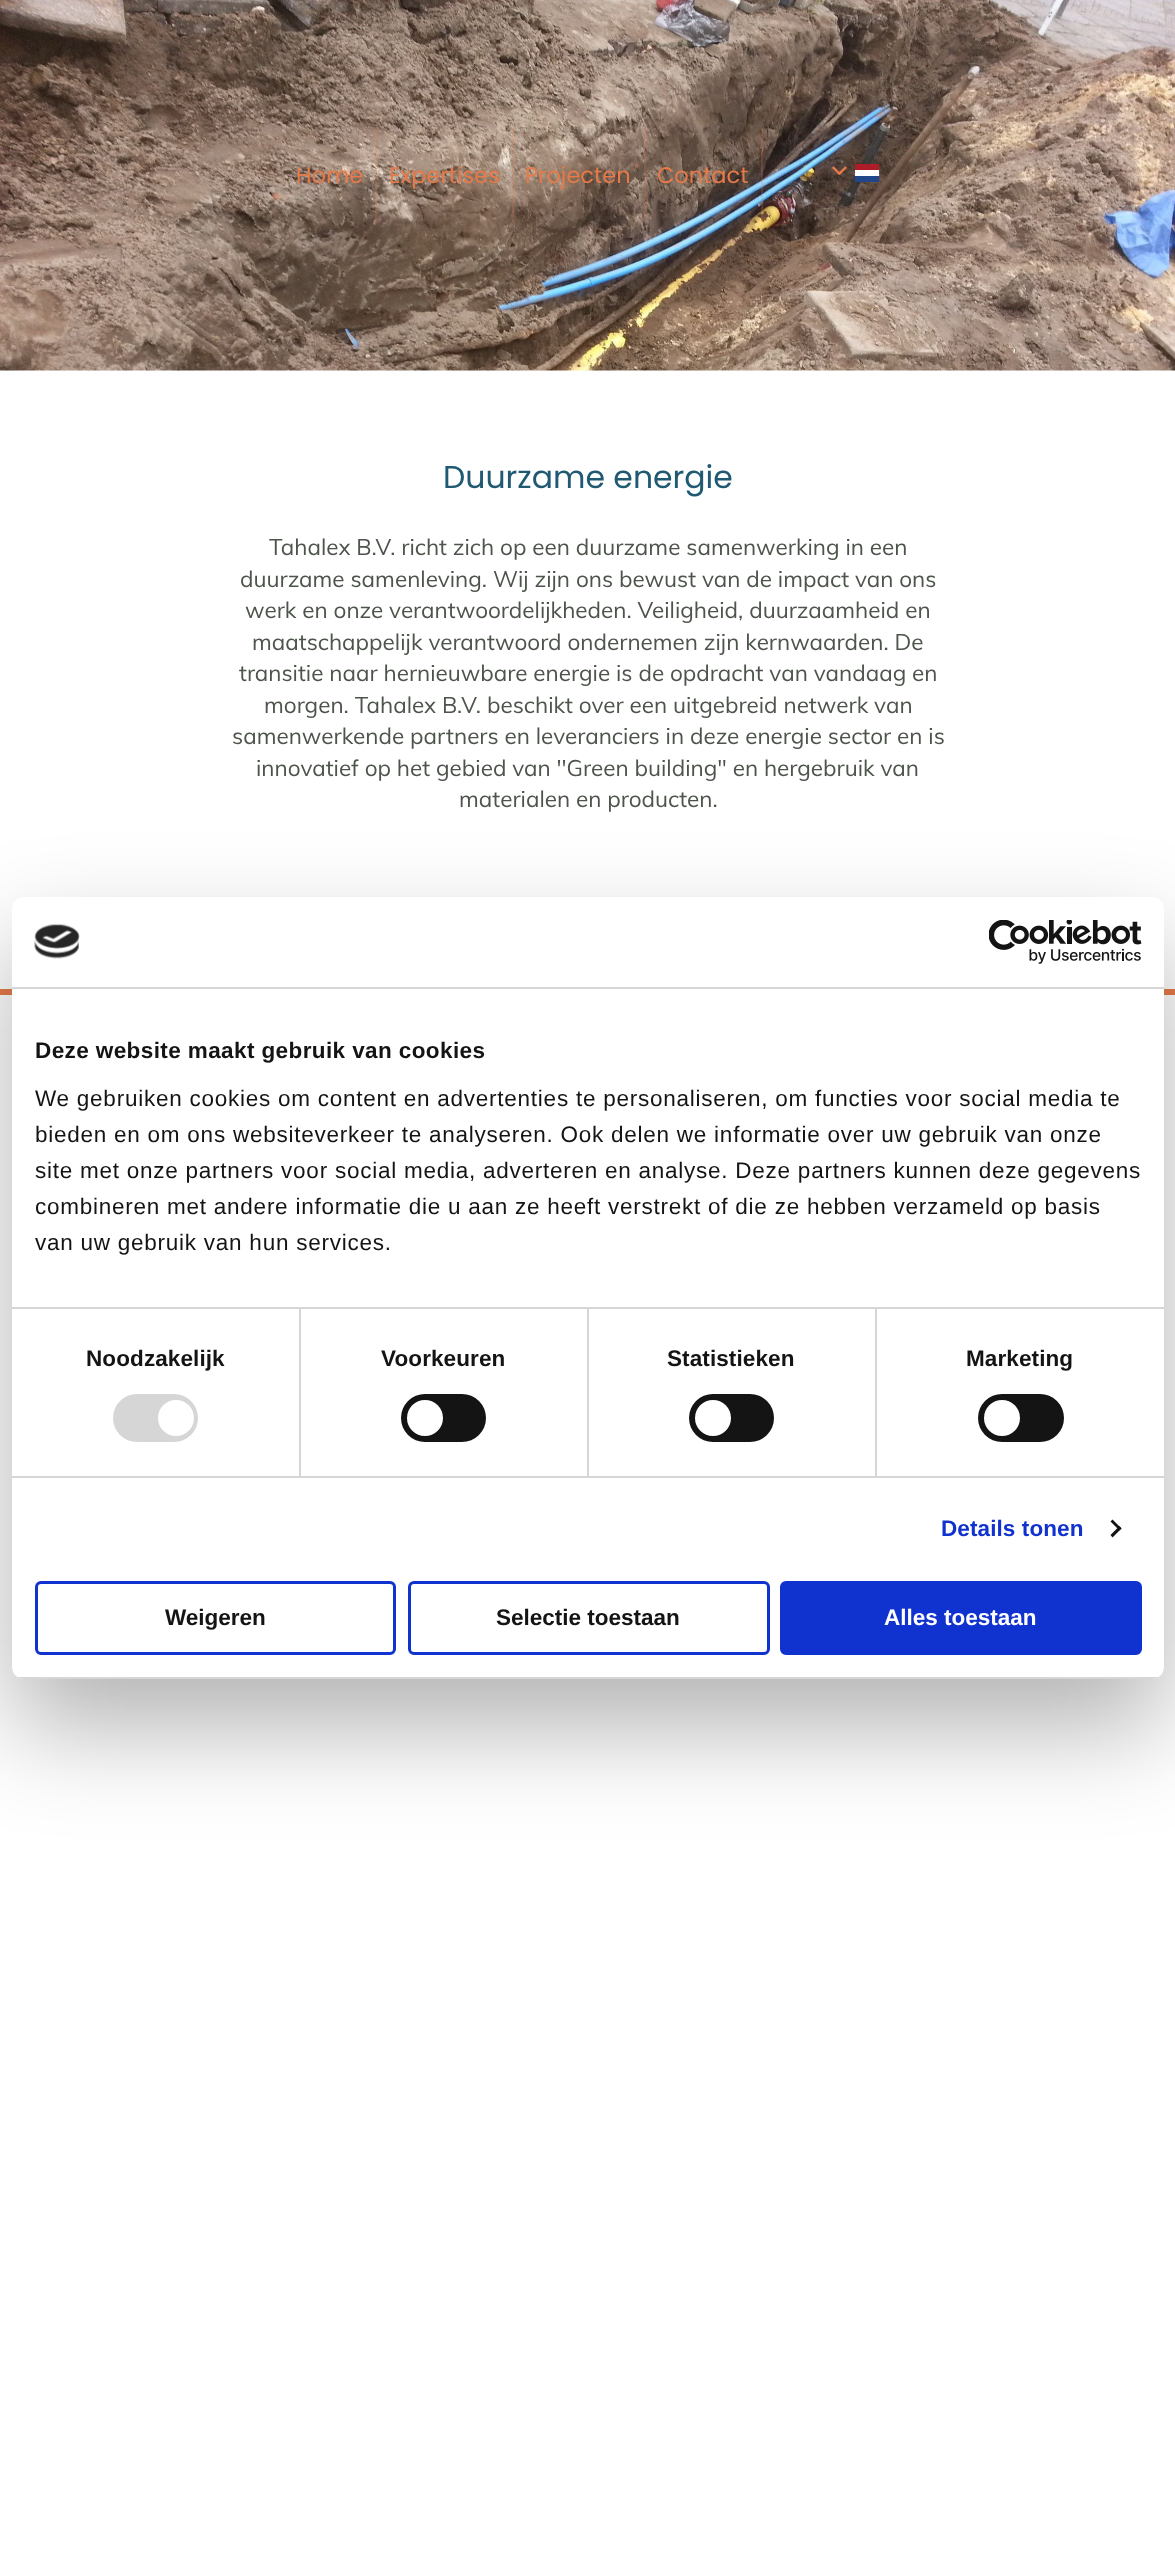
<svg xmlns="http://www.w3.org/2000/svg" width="1175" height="2573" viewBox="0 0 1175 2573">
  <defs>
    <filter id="blur1" x="-50%" y="-200%" width="200%" height="500%"><feGaussianBlur stdDeviation="51"/></filter>
    <clipPath id="clip1"><rect x="12" y="897" width="1152" height="782" rx="12"/></clipPath>
  </defs>
  <rect width="100%" height="100%" fill="#ffffff"/>
  <image x="0" y="0" width="1175" height="371" href="img2.png"/>
  <rect x="375" y="128" width="2" height="94" fill="#e67a49" fill-opacity="0.2"/>
  <text x="296" y="183" font-family="Poppins" font-size="22.5" fill="#e67a49">Home</text>
  <rect x="512" y="128" width="2" height="94" fill="#e67a49" fill-opacity="0.2"/>
  <text x="389" y="183" font-family="Poppins" font-size="22.5" fill="#e67a49">Expertises</text>
  <rect x="644" y="128" width="2" height="94" fill="#e67a49" fill-opacity="0.2"/>
  <text x="525" y="183" font-family="Poppins" font-size="22.5" fill="#e67a49">Projecten</text>
  <rect x="761" y="128" width="2" height="94" fill="#e67a49" fill-opacity="0.2"/>
  <text x="657" y="183" font-family="Poppins" font-size="22.5" fill="#e67a49">Contact</text>
  <image x="832" y="166" width="15" height="9" href="img1.png"/>
  <rect x="855" y="170" width="24" height="6" fill="#ffffff"/>
  <rect x="855" y="176" width="24" height="6" fill="#21468b"/>
  <rect x="855" y="164" width="24" height="6" fill="#ae1c28"/>
  <text x="443" y="488" font-family="Poppins" font-size="31.5" fill="#205a72">Duurzame energie</text>
  <text x="269" y="555" font-family="Muli" font-size="22.5" fill="#4d544b">Tahalex B.V. richt zich op een duurzame samenwerking in een</text>
  <text x="240" y="587" font-family="Muli" font-size="22.5" fill="#4d544b">duurzame samenleving. Wij zijn ons bewust van de impact van ons</text>
  <text x="245" y="618" font-family="Muli" font-size="22.5" fill="#4d544b">werk en onze verantwoordelijkheden. Veiligheid, duurzaamheid en</text>
  <text x="252" y="650" font-family="Muli" font-size="22.5" fill="#4d544b">maatschappelijk verantwoord ondernemen zijn kernwaarden. De</text>
  <text x="239" y="681" font-family="Muli" font-size="22.5" fill="#4d544b">transitie naar hernieuwbare energie is de opdracht van vandaag en</text>
  <text x="264" y="713" font-family="Muli" font-size="22.5" fill="#4d544b">morgen. Tahalex B.V. beschikt over een uitgebreid netwerk van</text>
  <text x="232" y="744" font-family="Muli" font-size="22.5" fill="#4d544b">samenwerkende partners en leveranciers in deze energie sector en is</text>
  <text x="256" y="776" font-family="Muli" font-size="22.5" fill="#4d544b">innovatief op het gebied van ''Green building" en hergebruik van</text>
  <text x="459" y="807" font-family="Muli" font-size="22.5" fill="#4d544b">materialen en producten.</text>
  <rect x="0" y="989" width="1175" height="6" fill="#e67a49"/>
  <rect x="12" y="945" width="1152" height="782" rx="12" fill="#000000" fill-opacity="0.3" filter="url(#blur1)"/>
  <rect x="12" y="897" width="1152" height="782" rx="12" fill="#ffffff"/>
  <rect x="12" y="987" width="1152" height="2" fill="#d6d6d6"/>
  <image x="34" y="924" width="46" height="35" href="img3.png"/>
  <image x="989" y="920" width="153" height="44" href="img4.png"/>
  <rect x="299" y="1308" width="2" height="168" fill="#d6d6d6"/>
  <rect x="587" y="1308" width="2" height="168" fill="#d6d6d6"/>
  <rect x="875" y="1308" width="2" height="168" fill="#d6d6d6"/>
  <rect x="12" y="1307" width="1152" height="2" fill="#d6d6d6"/>
  <text x="35" y="1058" font-family="Liberation Sans" font-size="22.5" font-weight="bold" letter-spacing="0.4" fill="#141414">Deze website maakt gebruik van cookies</text>
  <text x="35" y="1106" font-family="Liberation Sans" font-size="22.5" letter-spacing="0.75" fill="#141414">We gebruiken cookies om content en advertenties te personaliseren, om functies voor social media te</text>
  <text x="35" y="1142" font-family="Liberation Sans" font-size="22.5" letter-spacing="0.75" fill="#141414">bieden en om ons websiteverkeer te analyseren. Ook delen we informatie over uw gebruik van onze</text>
  <text x="35" y="1178" font-family="Liberation Sans" font-size="22.5" letter-spacing="0.75" fill="#141414">site met onze partners voor social media, adverteren en analyse. Deze partners kunnen deze gegevens</text>
  <text x="35" y="1214" font-family="Liberation Sans" font-size="22.5" letter-spacing="0.75" fill="#141414">combineren met andere informatie die u aan ze heeft verstrekt of die ze hebben verzameld op basis</text>
  <text x="35" y="1250" font-family="Liberation Sans" font-size="22.5" letter-spacing="0.75" fill="#141414">van uw gebruik van hun services.</text>
  <rect x="12" y="1476" width="1152" height="2" fill="#d6d6d6"/>
  <text x="86" y="1366" font-family="Liberation Sans" font-size="22.5" font-weight="bold" letter-spacing="0.1" fill="#141414">Noodzakelijk</text>
  <rect x="113" y="1394" width="85" height="48" rx="24" fill="#d6d6d6"/>
  <circle cx="176" cy="1418" r="18" fill="#ffffff"/>
  <text x="381" y="1366" font-family="Liberation Sans" font-size="22.5" font-weight="bold" letter-spacing="0.1" fill="#141414">Voorkeuren</text>
  <rect x="401" y="1394" width="85" height="48" rx="24" fill="#141414"/>
  <circle cx="425" cy="1418" r="18" fill="#ffffff"/>
  <text x="667" y="1366" font-family="Liberation Sans" font-size="22.5" font-weight="bold" letter-spacing="0.1" fill="#141414">Statistieken</text>
  <rect x="689" y="1394" width="85" height="48" rx="24" fill="#141414"/>
  <circle cx="713" cy="1418" r="18" fill="#ffffff"/>
  <text x="966" y="1366" font-family="Liberation Sans" font-size="22.5" font-weight="bold" letter-spacing="0.1" fill="#141414">Marketing</text>
  <rect x="978" y="1394" width="86" height="48" rx="24" fill="#141414"/>
  <circle cx="1002" cy="1418" r="18" fill="#ffffff"/>
  <text x="941" y="1536" font-family="Liberation Sans" font-size="22.5" font-weight="bold" letter-spacing="0.1" fill="#1032cf">Details tonen</text>
  <path d="M1112.5 1519.5L1121.5 1528.5L1119.5 1530.5L1110.5 1521.5Z" fill="#141414"/>
  <path d="M1119.5 1526L1121.5 1528.5L1112.5 1537.5L1110.5 1535Z" fill="#141414"/>
  <g clip-path="url(#clip1)">
    <rect x="12" y="1677" width="1152" height="2" fill="#d6d6d6"/>
  </g>
  <rect x="36.5" y="1582.5" width="358" height="71" rx="4.5" fill="none" stroke="#1032cf" stroke-width="3"/>
  <text x="165" y="1625" font-family="Liberation Sans" font-size="22.5" font-weight="bold" fill="#141414">Weigeren</text>
  <rect x="409.5" y="1582.5" width="359" height="71" rx="4.5" fill="none" stroke="#1032cf" stroke-width="3"/>
  <text x="496" y="1625" font-family="Liberation Sans" font-size="22.5" font-weight="bold" fill="#141414">Selectie toestaan</text>
  <rect x="781.5" y="1582.5" width="359" height="71" rx="4.5" fill="#1032cf" stroke="#1032cf" stroke-width="3"/>
  <text x="884" y="1625" font-family="Liberation Sans" font-size="22.5" font-weight="bold" fill="#ffffff">Alles toestaan</text>
</svg>
